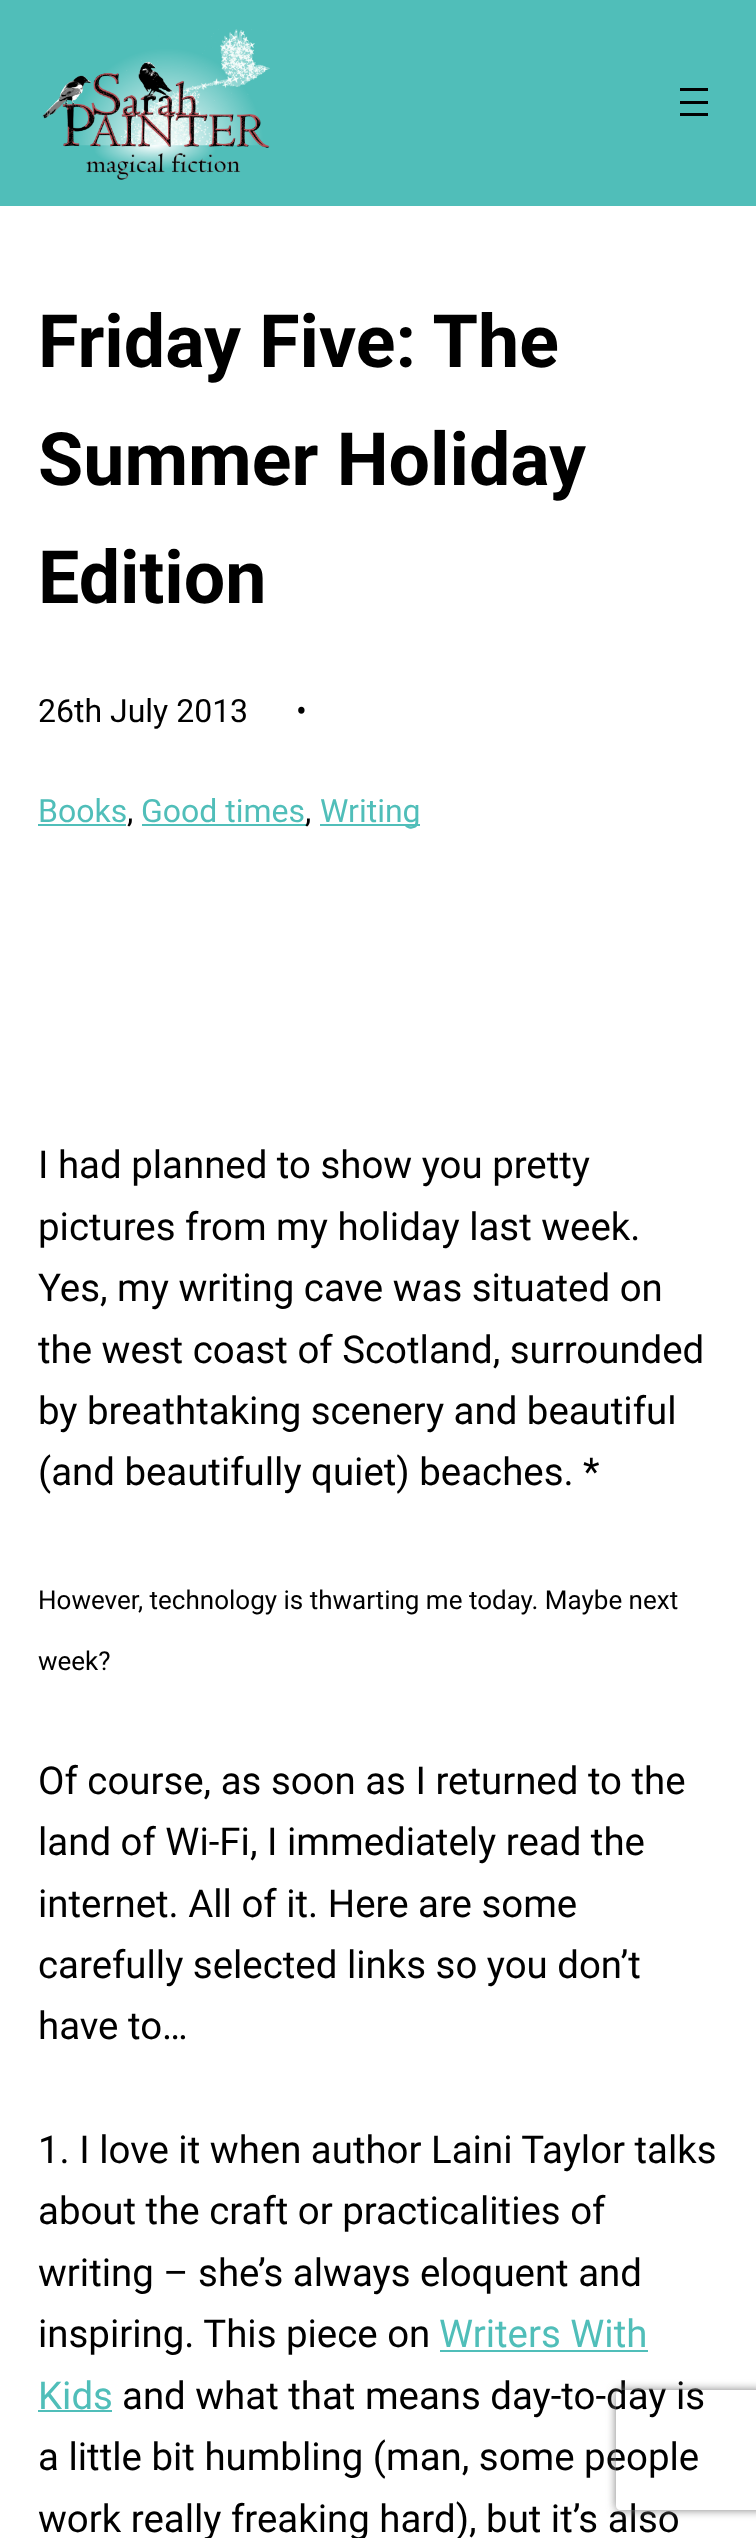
<svg xmlns="http://www.w3.org/2000/svg" width="756" height="2538" viewBox="0 0 756 2538">
  <defs>
    <clipPath id="clip1"><path d="M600 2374H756V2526H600ZM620 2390H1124C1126 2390 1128 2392 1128 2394V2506C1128 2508 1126 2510 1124 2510H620C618 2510 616 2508 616 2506V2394C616 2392 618 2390 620 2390Z" clip-rule="evenodd"/></clipPath>
    <filter id="blur1" x="-50%" y="-200%" width="200%" height="500%"><feGaussianBlur stdDeviation="5"/></filter>
  </defs>
  <rect width="100%" height="100%" fill="#ffffff"/>
  <rect x="0" y="0" width="756" height="206" fill="#50beb9"/>
  <image x="42" y="29" width="228" height="151" href="img1.png"/>
  <rect x="680" y="88" width="28" height="3" fill="#010101"/>
  <rect x="680" y="101" width="28" height="3" fill="#010101"/>
  <rect x="680" y="113" width="28" height="3" fill="#010101"/>
  <text x="38" y="367" font-family="Roboto" font-size="73.5" font-weight="bold" fill="#000000">Friday Five: The</text>
  <text x="38" y="485" font-family="Roboto" font-size="73.5" font-weight="bold" fill="#000000">Summer Holiday</text>
  <text x="38" y="603" font-family="Roboto" font-size="73.5" font-weight="bold" fill="#000000">Edition</text>
  <text x="38" y="722" font-family="Roboto" font-size="32" fill="#000000">26th July 2013</text>
  <text x="296" y="722" font-family="Roboto" font-size="32" fill="#000000">•</text>
  <text x="38" y="822" font-family="Roboto" font-size="32" fill="#50beb9">Books</text>
  <rect x="38" y="824" width="88" height="2" fill="#50beb9"/>
  <text x="127" y="822" font-family="Roboto" font-size="32" fill="#000000">,</text>
  <text x="141" y="822" font-family="Roboto" font-size="32" fill="#50beb9">Good times</text>
  <rect x="142" y="824" width="164" height="2" fill="#50beb9"/>
  <text x="305" y="822" font-family="Roboto" font-size="32" fill="#000000">,</text>
  <rect x="320" y="824" width="100" height="2" fill="#50beb9"/>
  <text x="320" y="822" font-family="Roboto" font-size="32" fill="#50beb9">Writing</text>
  <text x="38" y="1178" font-family="Roboto" font-size="38.4" fill="#000000">I had planned to show you pretty</text>
  <text x="38" y="1240" font-family="Roboto" font-size="38.4" fill="#000000">pictures from my holiday last week.</text>
  <text x="38" y="1301" font-family="Roboto" font-size="38.4" fill="#000000">Yes, my writing cave was situated on</text>
  <text x="38" y="1363" font-family="Roboto" font-size="38.4" fill="#000000">the west coast of Scotland, surrounded</text>
  <text x="38" y="1424" font-family="Roboto" font-size="38.4" fill="#000000">by breathtaking scenery and beautiful</text>
  <text x="38" y="1485" font-family="Roboto" font-size="38.4" fill="#000000">(and beautifully quiet) beaches. *</text>
  <text x="38" y="1609" font-family="Roboto" font-size="26" fill="#000000">However, technology is thwarting me today. Maybe next</text>
  <text x="38" y="1670" font-family="Roboto" font-size="26" fill="#000000">week?</text>
  <text x="38" y="1794" font-family="Roboto" font-size="38.4" fill="#000000">Of course, as soon as I returned to the</text>
  <text x="38" y="1855" font-family="Roboto" font-size="38.4" fill="#000000">land of Wi-Fi, I immediately read the</text>
  <text x="38" y="1917" font-family="Roboto" font-size="38.4" fill="#000000">internet. All of it. Here are some</text>
  <text x="38" y="1978" font-family="Roboto" font-size="38.4" fill="#000000">carefully selected links so you don’t</text>
  <text x="38" y="2039" font-family="Roboto" font-size="38.4" fill="#000000">have to…</text>
  <text x="38" y="2163" font-family="Roboto" font-size="38.4" fill="#000000">1. I love it when author Laini Taylor talks</text>
  <text x="38" y="2224" font-family="Roboto" font-size="38.4" fill="#000000">about the craft or practicalities of</text>
  <text x="38" y="2286" font-family="Roboto" font-size="38.4" fill="#000000">writing – she’s always eloquent and</text>
  <text x="38" y="2347" font-family="Roboto" font-size="38.4" fill="#000000">inspiring. This piece on</text>
  <text x="439" y="2347" font-family="Roboto" font-size="38.4" fill="#50beb9">Writers With</text>
  <rect x="440" y="2350" width="208" height="2" fill="#50beb9"/>
  <text x="38" y="2409" font-family="Roboto" font-size="38.4" fill="#50beb9">Kids</text>
  <rect x="38" y="2410" width="74" height="2" fill="#50beb9"/>
  <text x="122" y="2409" font-family="Roboto" font-size="38.4" fill="#000000">and what that means day-to-day is</text>
  <text x="38" y="2470" font-family="Roboto" font-size="38.4" fill="#000000">a little bit humbling (man, some people</text>
  <text x="38" y="2532" font-family="Roboto" font-size="38.4" fill="#000000">work really freaking hard), but it’s also</text>
  <g clip-path="url(#clip1)">
    <rect x="616" y="2390" width="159" height="120" rx="4" fill="#808080" filter="url(#blur1)"/>
  </g>
</svg>
